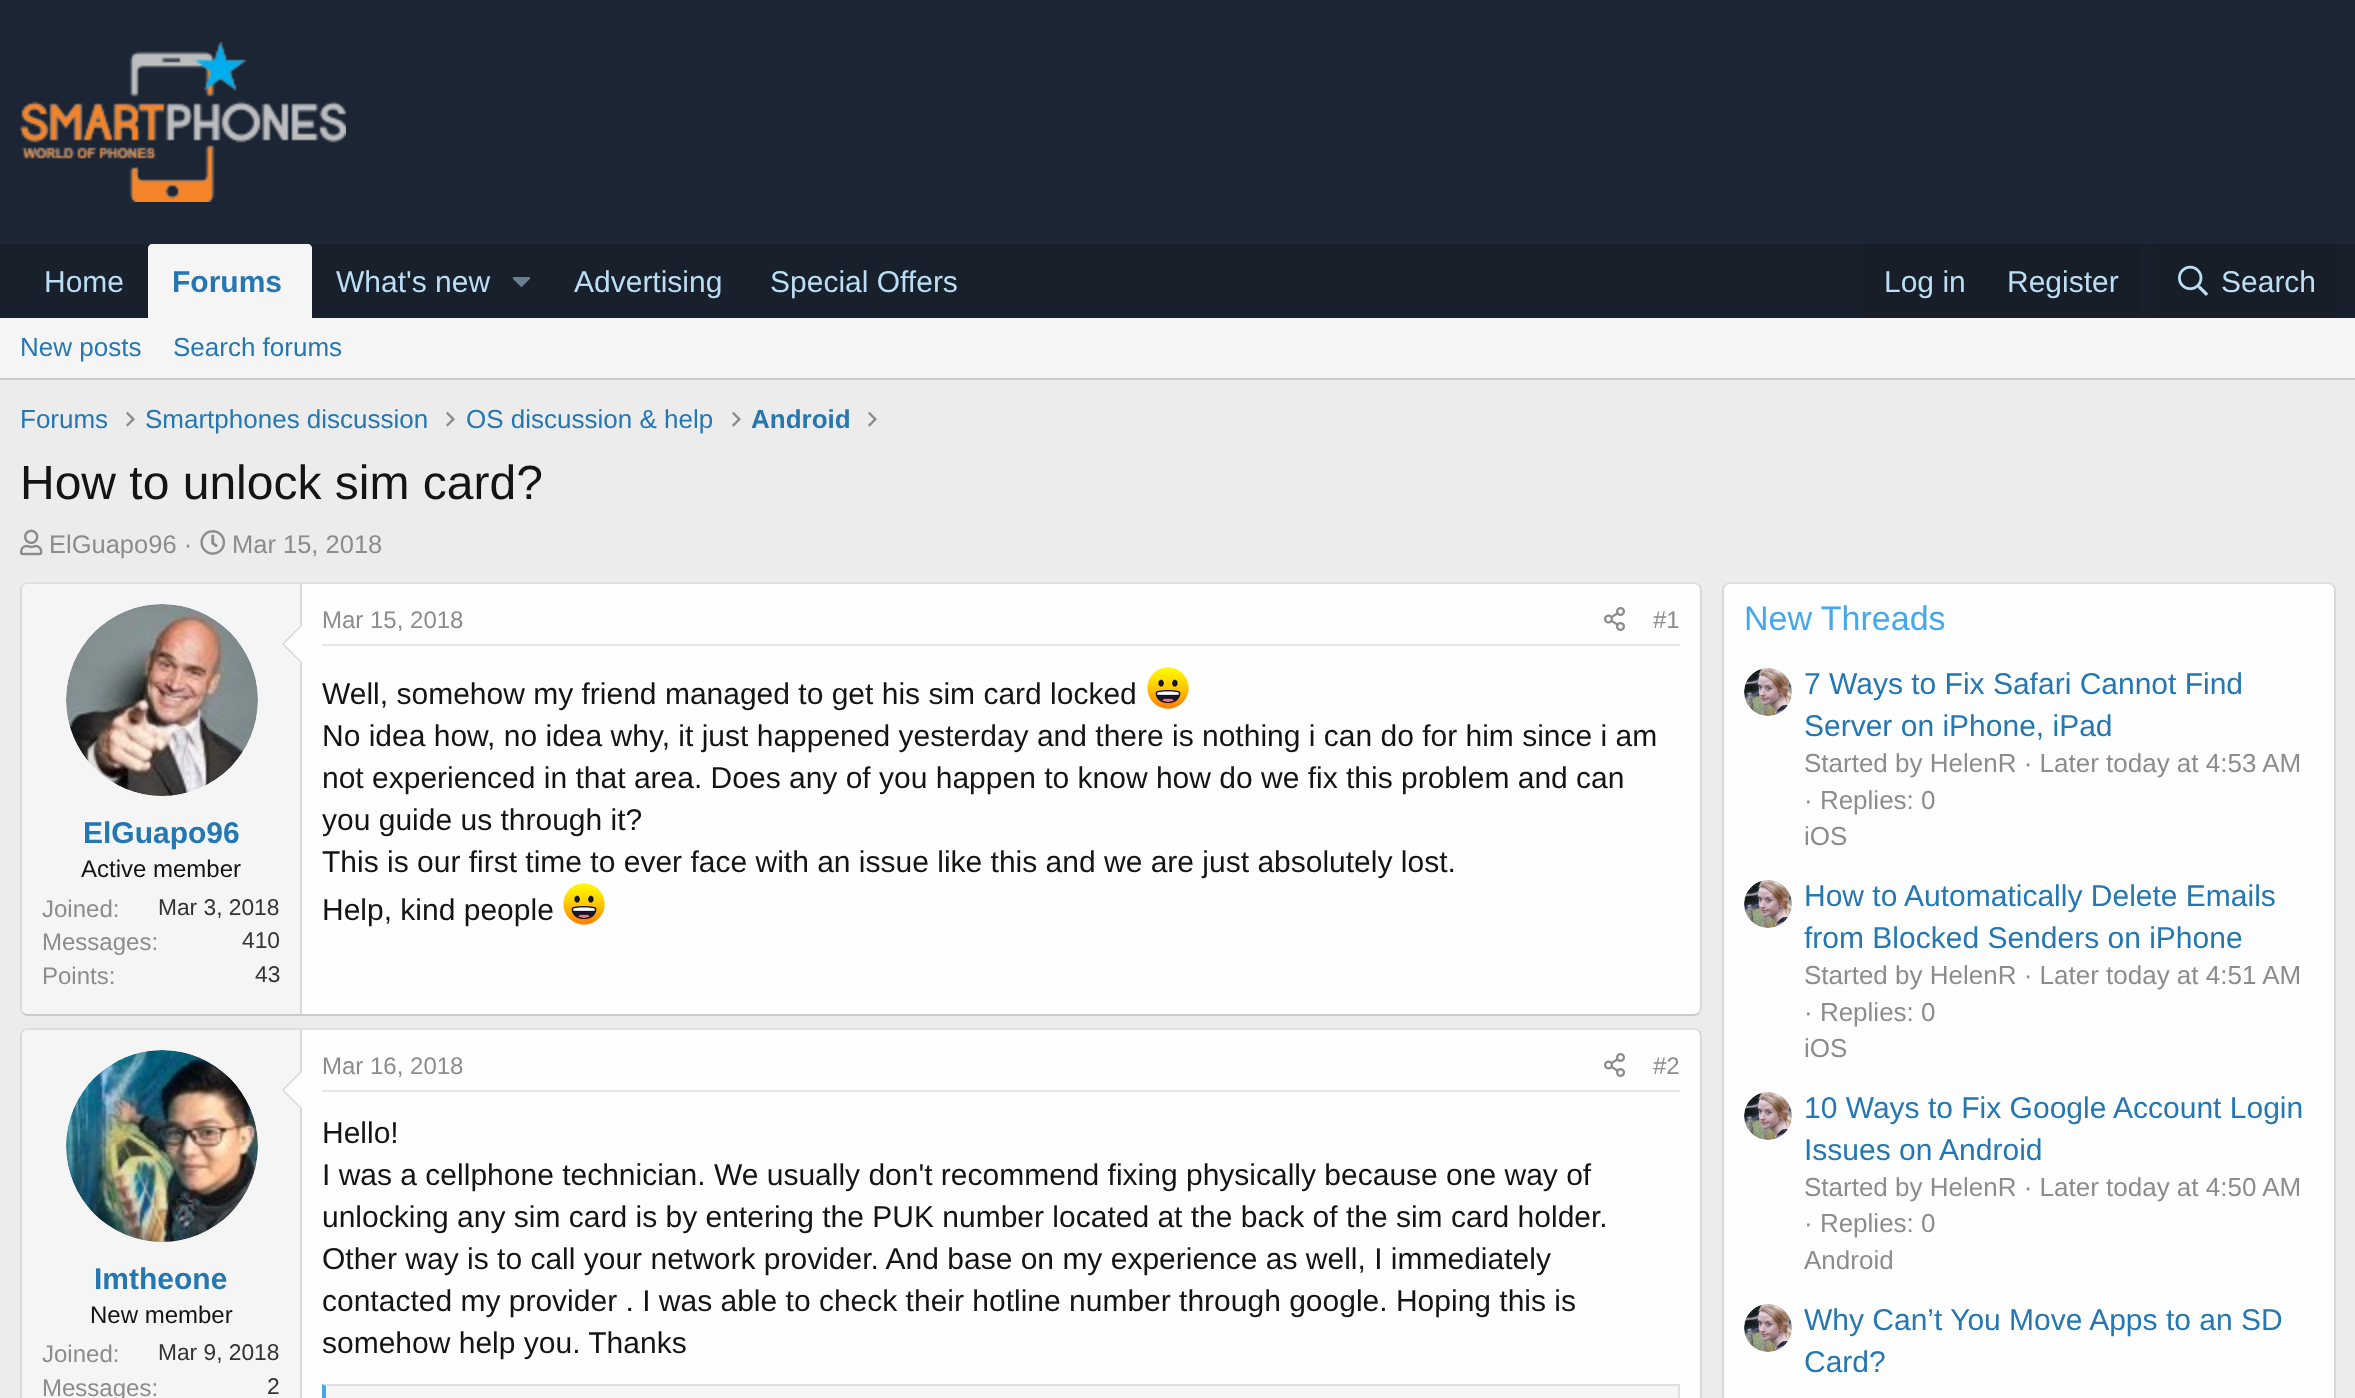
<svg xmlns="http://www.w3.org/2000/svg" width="2355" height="1398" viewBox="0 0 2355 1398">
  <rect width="100%" height="100%" fill="#ececec"/>
  <rect x="0" y="0" width="2355" height="244" fill="#1b2534"/>
  <image x="20" y="42" width="326" height="160" href="img1.png"/>
  <rect x="0" y="244" width="2355" height="74" fill="#17202b"/>
  <text x="44" y="292" font-family="Liberation Sans" font-size="30" fill="#bcdef5">Home</text>
  <path d="M152 244H308C310 244 312 246 312 248V318H148V248C148 246 150 244 152 244Z" fill="#f5f5f5"/>
  <text x="172" y="292" font-family="Liberation Sans" font-size="30" font-weight="bold" fill="#2577b1">Forums</text>
  <text x="336" y="292" font-family="Liberation Sans" font-size="30" fill="#bcdef5">What's new</text>
  <image x="512" y="277" width="18" height="10" href="img2.png"/>
  <text x="574" y="292" font-family="Liberation Sans" font-size="30" fill="#bcdef5">Advertising</text>
  <text x="770" y="292" font-family="Liberation Sans" font-size="30" fill="#bcdef5">Special Offers</text>
  <path d="M1872 244H2132C2136.5 244 2140 247.5 2140 252V318H1864V252C1864 247.5 1867.5 244 1872 244Z" fill="#171e28"/>
  <text x="1884" y="292" font-family="Liberation Sans" font-size="30" fill="#bcdef5">Log in</text>
  <rect x="1986" y="244" width="2" height="74" fill="#171d25"/>
  <text x="2007" y="292" font-family="Liberation Sans" font-size="30" fill="#bcdef5">Register</text>
  <path d="M2162 244H2328C2332.5 244 2336 247.5 2336 252V318H2154V252C2154 247.5 2157.5 244 2162 244Z" fill="#171e28"/>
  <image x="2178" y="265" width="30" height="31" href="img3.png"/>
  <text x="2221" y="292" font-family="Liberation Sans" font-size="30" fill="#bcdef5">Search</text>
  <rect x="0" y="318" width="2355" height="60" fill="#f5f5f5"/>
  <rect x="0" y="378" width="2355" height="2" fill="#cbcbcb"/>
  <text x="20" y="356" font-family="Liberation Sans" font-size="26" fill="#2577b1">New posts</text>
  <text x="173" y="356" font-family="Liberation Sans" font-size="26" fill="#2577b1">Search forums</text>
  <text x="20" y="428" font-family="Liberation Sans" font-size="26" fill="#2577b1">Forums</text>
  <image x="126" y="412" width="9" height="15" href="img4.png"/>
  <text x="145" y="428" font-family="Liberation Sans" font-size="26" fill="#2577b1">Smartphones discussion</text>
  <image x="446" y="412" width="9" height="15" href="img4.png"/>
  <text x="466" y="428" font-family="Liberation Sans" font-size="26" fill="#2577b1">OS discussion &amp; help</text>
  <image x="732" y="412" width="9" height="15" href="img4.png"/>
  <text x="751" y="428" font-family="Liberation Sans" font-size="26" font-weight="bold" fill="#2577b1">Android</text>
  <image x="868" y="412" width="9" height="15" href="img4.png"/>
  <text x="20" y="499" font-family="Liberation Sans" font-size="48" fill="#141414">How to unlock sim card?</text>
  <image x="20" y="529" width="23" height="27" href="img5.png"/>
  <text x="49" y="553" font-family="Liberation Sans" font-size="25.5" fill="#8c8c8c">ElGuapo96 ·</text>
  <image x="200" y="530" width="26" height="25" href="img6.png"/>
  <text x="232" y="553" font-family="Liberation Sans" font-size="25.5" fill="#8c8c8c">Mar 15, 2018</text>
  <rect x="20" y="582" width="1682" height="434" rx="8" fill="#fefefe"/>
  <path d="M23 585C24.5 583.5 26 583 28 583H1694C1696 583 1697.5 583.5 1699 585" fill="none" stroke="#dfdfdf" stroke-width="2"/>
  <path d="M1699 585C1700.5 586.5 1701 588 1701 590V1008C1701 1010 1700.5 1011.5 1699 1013" fill="none" stroke="#d8d8d8" stroke-width="2"/>
  <path d="M1699 1013C1697.5 1014.5 1696 1015 1694 1015H28C26 1015 24.5 1014.5 23 1013" fill="none" stroke="#cbcbcb" stroke-width="2"/>
  <path d="M23 1013C21.5 1011.5 21 1010 21 1008V590C21 588 21.5 586.5 23 585" fill="none" stroke="#d8d8d8" stroke-width="2"/>
  <path d="M28 584H302V1014H28C24.5 1014 22 1011.5 22 1008V590C22 586.5 24.5 584 28 584Z" fill="#f5f5f5"/>
  <rect x="300" y="584" width="2" height="430" fill="#d8d8d8"/>
  <circle cx="162" cy="700" r="96" fill="#fefefe"/>
  <image x="66" y="604" width="192" height="192" href="img7.png"/>
  <path d="M302 624V664L282 644Z" fill="#d8d8d8"/>
  <path d="M302 626V662L284 644Z" fill="#fefefe"/>
  <text x="83" y="843" font-family="Liberation Sans" font-size="30" font-weight="bold" fill="#2577b1">ElGuapo96</text>
  <text x="81" y="877" font-family="Liberation Sans" font-size="24" fill="#141414">Active member</text>
  <text x="42" y="917" font-family="Liberation Sans" font-size="24" fill="#8c8c8c">Joined:</text>
  <text x="158" y="915" font-family="Liberation Sans" font-size="22.75" fill="#333333">Mar 3, 2018</text>
  <text x="42" y="950" font-family="Liberation Sans" font-size="24" fill="#8c8c8c">Messages:</text>
  <text x="242" y="948" font-family="Liberation Sans" font-size="22.75" fill="#333333">410</text>
  <text x="42" y="984" font-family="Liberation Sans" font-size="24" fill="#8c8c8c">Points:</text>
  <text x="255" y="982" font-family="Liberation Sans" font-size="22.75" fill="#333333">43</text>
  <rect x="322" y="644" width="1358" height="2" fill="#e7e7e7"/>
  <text x="322" y="628" font-family="Liberation Sans" font-size="24" fill="#8c8c8c">Mar 15, 2018</text>
  <image x="1604" y="607" width="21" height="24" href="img8.png"/>
  <text x="1653" y="628" font-family="Liberation Sans" font-size="24" fill="#8c8c8c">#1</text>
  <text x="322" y="704" font-family="Liberation Sans" font-size="30" fill="#141414">Well, somehow my friend managed to get his sim card locked</text>
  <image x="1147" y="667" width="42" height="42" href="img9.png"/>
  <text x="322" y="746" font-family="Liberation Sans" font-size="30" fill="#141414">No idea how, no idea why, it just happened yesterday and there is nothing i can do for him since i am</text>
  <text x="322" y="788" font-family="Liberation Sans" font-size="30" fill="#141414">not experienced in that area. Does any of you happen to know how do we fix this problem and can</text>
  <text x="322" y="830" font-family="Liberation Sans" font-size="30" fill="#141414">you guide us through it?</text>
  <text x="322" y="872" font-family="Liberation Sans" font-size="30" fill="#141414">This is our first time to ever face with an issue like this and we are just absolutely lost.</text>
  <text x="322" y="920" font-family="Liberation Sans" font-size="30" fill="#141414">Help, kind people</text>
  <image x="563" y="883" width="42" height="42" href="img9.png"/>
  <rect x="20" y="1028" width="1682" height="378" rx="8" fill="#fefefe"/>
  <path d="M23 1031C24.5 1029.5 26 1029 28 1029H1694C1696 1029 1697.5 1029.5 1699 1031" fill="none" stroke="#dfdfdf" stroke-width="2"/>
  <path d="M1699 1031C1700.5 1032.5 1701 1034 1701 1036V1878C1701 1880 1700.5 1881.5 1699 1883" fill="none" stroke="#d8d8d8" stroke-width="2"/>
  <path d="M23 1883C21.5 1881.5 21 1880 21 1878V1036C21 1034 21.5 1032.5 23 1031" fill="none" stroke="#d8d8d8" stroke-width="2"/>
  <path d="M28 1030H302V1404H28C24.5 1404 22 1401.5 22 1398V1036C22 1032.5 24.5 1030 28 1030Z" fill="#f5f5f5"/>
  <rect x="300" y="1030" width="2" height="368" fill="#d8d8d8"/>
  <circle cx="162" cy="1146" r="96" fill="#fefefe"/>
  <image x="66" y="1050" width="192" height="192" href="img10.png"/>
  <path d="M302 1070V1110L282 1090Z" fill="#d8d8d8"/>
  <path d="M302 1072V1108L284 1090Z" fill="#fefefe"/>
  <text x="94" y="1289" font-family="Liberation Sans" font-size="30" font-weight="bold" fill="#2577b1">Imtheone</text>
  <text x="90" y="1323" font-family="Liberation Sans" font-size="24" fill="#141414">New member</text>
  <text x="42" y="1362" font-family="Liberation Sans" font-size="24" fill="#8c8c8c">Joined:</text>
  <text x="158" y="1360" font-family="Liberation Sans" font-size="22.75" fill="#333333">Mar 9, 2018</text>
  <text x="42" y="1396" font-family="Liberation Sans" font-size="24" fill="#8c8c8c">Messages:</text>
  <text x="267" y="1394" font-family="Liberation Sans" font-size="22.75" fill="#333333">2</text>
  <rect x="322" y="1090" width="1358" height="2" fill="#e7e7e7"/>
  <text x="322" y="1074" font-family="Liberation Sans" font-size="24" fill="#8c8c8c">Mar 16, 2018</text>
  <image x="1604" y="1053" width="21" height="24" href="img8.png"/>
  <text x="1653" y="1074" font-family="Liberation Sans" font-size="24" fill="#8c8c8c">#2</text>
  <text x="322" y="1143" font-family="Liberation Sans" font-size="30" fill="#141414">Hello!</text>
  <text x="322" y="1185" font-family="Liberation Sans" font-size="30" fill="#141414">I was a cellphone technician. We usually don't recommend fixing physically because one way of</text>
  <text x="322" y="1227" font-family="Liberation Sans" font-size="30" fill="#141414">unlocking any sim card is by entering the PUK number located at the back of the sim card holder.</text>
  <text x="322" y="1269" font-family="Liberation Sans" font-size="30" fill="#141414">Other way is to call your network provider. And base on my experience as well, I immediately</text>
  <text x="322" y="1311" font-family="Liberation Sans" font-size="30" fill="#141414">contacted my provider . I was able to check their hotline number through google. Hoping this is</text>
  <text x="322" y="1353" font-family="Liberation Sans" font-size="30" fill="#141414">somehow help you. Thanks</text>
  <rect x="326" y="1386" width="1352" height="12" fill="#f5f5f5"/>
  <path d="M322 1384H1680L1678 1386H326Z" fill="#dfdfdf"/>
  <rect x="1678" y="1384" width="2" height="14" fill="#dfdfdf"/>
  <path d="M322 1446V1384L326 1386V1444Z" fill="#47a7eb"/>
  <rect x="1722" y="582" width="614" height="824" rx="8" fill="#fefefe"/>
  <path d="M1725 585C1726.5 583.5 1728 583 1730 583H2328C2330 583 2331.5 583.5 2333 585" fill="none" stroke="#dfdfdf" stroke-width="2"/>
  <path d="M2333 585C2334.5 586.5 2335 588 2335 590V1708C2335 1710 2334.5 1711.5 2333 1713" fill="none" stroke="#d8d8d8" stroke-width="2"/>
  <path d="M1725 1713C1723.5 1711.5 1723 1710 1723 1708V590C1723 588 1723.5 586.5 1725 585" fill="none" stroke="#d8d8d8" stroke-width="2"/>
  <text x="1744" y="630" font-family="Liberation Sans" font-size="34" fill="#47a7eb">New Threads</text>
  <image x="1744" y="668" width="48" height="48" href="img11.png"/>
  <text x="1804" y="694" font-family="Liberation Sans" font-size="30" fill="#2577b1">7 Ways to Fix Safari Cannot Find</text>
  <text x="1804" y="736" font-family="Liberation Sans" font-size="30" fill="#2577b1">Server on iPhone, iPad</text>
  <text x="1804" y="772" font-family="Liberation Sans" font-size="26" fill="#8c8c8c">Started by HelenR · Later today at 4:53 AM</text>
  <text x="1804" y="809" font-family="Liberation Sans" font-size="26" fill="#8c8c8c">· Replies: 0</text>
  <text x="1804" y="845" font-family="Liberation Sans" font-size="26" fill="#8c8c8c">iOS</text>
  <image x="1744" y="880" width="48" height="48" href="img11.png"/>
  <text x="1804" y="906" font-family="Liberation Sans" font-size="30" fill="#2577b1">How to Automatically Delete Emails</text>
  <text x="1804" y="948" font-family="Liberation Sans" font-size="30" fill="#2577b1">from Blocked Senders on iPhone</text>
  <text x="1804" y="984" font-family="Liberation Sans" font-size="26" fill="#8c8c8c">Started by HelenR · Later today at 4:51 AM</text>
  <text x="1804" y="1021" font-family="Liberation Sans" font-size="26" fill="#8c8c8c">· Replies: 0</text>
  <text x="1804" y="1057" font-family="Liberation Sans" font-size="26" fill="#8c8c8c">iOS</text>
  <image x="1744" y="1092" width="48" height="48" href="img11.png"/>
  <text x="1804" y="1118" font-family="Liberation Sans" font-size="30" fill="#2577b1">10 Ways to Fix Google Account Login</text>
  <text x="1804" y="1160" font-family="Liberation Sans" font-size="30" fill="#2577b1">Issues on Android</text>
  <text x="1804" y="1196" font-family="Liberation Sans" font-size="26" fill="#8c8c8c">Started by HelenR · Later today at 4:50 AM</text>
  <text x="1804" y="1232" font-family="Liberation Sans" font-size="26" fill="#8c8c8c">· Replies: 0</text>
  <text x="1804" y="1269" font-family="Liberation Sans" font-size="26" fill="#8c8c8c">Android</text>
  <image x="1744" y="1304" width="48" height="48" href="img11.png"/>
  <text x="1804" y="1330" font-family="Liberation Sans" font-size="30" fill="#2577b1">Why Can’t You Move Apps to an SD</text>
  <text x="1804" y="1372" font-family="Liberation Sans" font-size="30" fill="#2577b1">Card?</text>
</svg>
